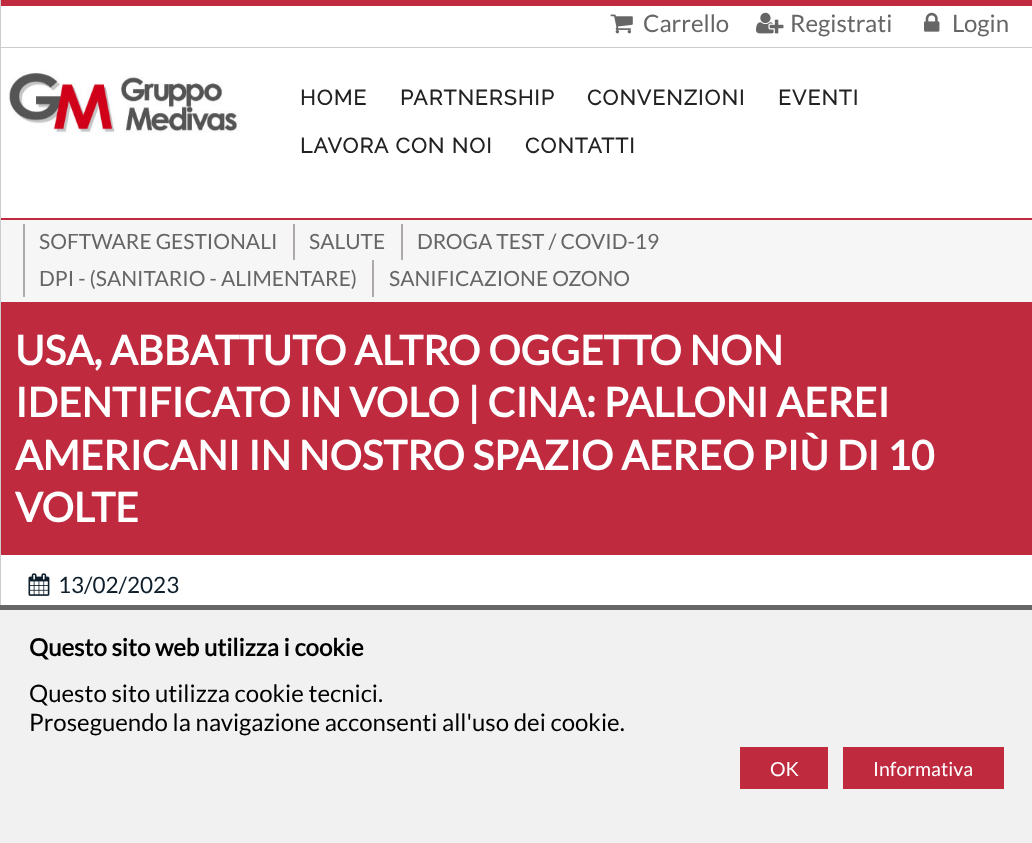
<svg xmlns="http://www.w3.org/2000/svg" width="1032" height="843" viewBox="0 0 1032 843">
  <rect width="100%" height="100%" fill="#ffffff"/>
  <rect x="0" y="0" width="1032" height="6" fill="#bf2a3f"/>
  <rect x="0" y="47" width="1032" height="1" fill="#cccccc"/>
  <rect x="0" y="218" width="1032" height="2" fill="#bf2a3f"/>
  <rect x="0" y="302" width="1032" height="2" fill="#bf2a3f"/>
  <rect x="0" y="0" width="1" height="605" fill="#cccccc"/>
  <image x="610" y="14" width="23" height="20" href="img1.png"/>
  <text x="643" y="32" font-family="Lato" font-size="24" fill="#666666">Carrello</text>
  <image x="756" y="12" width="28" height="22" href="img2.png"/>
  <text x="790" y="32" font-family="Lato" font-size="24" fill="#666666">Registrati</text>
  <image x="924" y="12" width="16" height="20" href="img3.png"/>
  <text x="952" y="32" font-family="Lato" font-size="24" fill="#666666">Login</text>
  <image x="8" y="71" width="232" height="62" href="img4.png"/>
  <text x="300" y="105" font-family="Raleway" font-size="21" font-weight="bold" letter-spacing="1.2" fill="#222222">HOME</text>
  <text x="400" y="105" font-family="Raleway" font-size="21" font-weight="bold" letter-spacing="1.2" fill="#222222">PARTNERSHIP</text>
  <text x="587" y="105" font-family="Raleway" font-size="21" font-weight="bold" letter-spacing="1.2" fill="#222222">CONVENZIONI</text>
  <text x="778" y="105" font-family="Raleway" font-size="21" font-weight="bold" letter-spacing="1.2" fill="#222222">EVENTI</text>
  <text x="300" y="153" font-family="Raleway" font-size="21" font-weight="bold" letter-spacing="1.2" fill="#222222">LAVORA CON NOI</text>
  <text x="525" y="153" font-family="Raleway" font-size="21" font-weight="bold" letter-spacing="1.2" fill="#222222">CONTATTI</text>
  <rect x="1" y="220" width="1031" height="82" fill="#f6f6f6"/>
  <rect x="23" y="224" width="2" height="73" fill="#aea9a9"/>
  <text x="39" y="249" font-family="Lato" font-size="21" fill="#666666">SOFTWARE GESTIONALI</text>
  <rect x="293" y="224" width="2" height="36" fill="#aea9a9"/>
  <text x="309" y="249" font-family="Lato" font-size="21" fill="#666666">SALUTE</text>
  <rect x="401" y="224" width="2" height="36" fill="#aea9a9"/>
  <text x="417" y="249" font-family="Lato" font-size="21" fill="#666666">DROGA TEST / COVID-19</text>
  <text x="39" y="286" font-family="Lato" font-size="21" fill="#666666">DPI - (SANITARIO - ALIMENTARE)</text>
  <rect x="372" y="260" width="2" height="37" fill="#aea9a9"/>
  <text x="389" y="286" font-family="Lato" font-size="21" fill="#666666">SANIFICAZIONE OZONO</text>
  <rect x="1" y="304" width="1031" height="251" fill="#bf2a3f"/>
  <text x="15" y="365" font-family="Lato" font-size="40.5" font-weight="bold" fill="#ffffff">USA, ABBATTUTO ALTRO OGGETTO NON</text>
  <text x="15" y="417" font-family="Lato" font-size="40.5" font-weight="bold" fill="#ffffff">IDENTIFICATO IN VOLO | CINA: PALLONI AEREI</text>
  <text x="15" y="470" font-family="Lato" font-size="40.5" font-weight="bold" fill="#ffffff">AMERICANI IN NOSTRO SPAZIO AEREO PIÙ DI 10</text>
  <text x="15" y="522" font-family="Lato" font-size="40.5" font-weight="bold" fill="#ffffff">VOLTE</text>
  <image x="28" y="573" width="22" height="23" href="img5.png"/>
  <text x="58" y="593" font-family="Lato" font-size="22.5" fill="#0f1f2c">13/02/2023</text>
  <rect x="0" y="610" width="1032" height="233" fill="#f1f1f1"/>
  <rect x="0" y="605" width="1032" height="5" fill="#666666"/>
  <text x="29" y="656" font-family="Lato" font-size="24" font-weight="bold" fill="#000000">Questo sito web utilizza i cookie</text>
  <text x="29" y="702" font-family="Lato" font-size="24" fill="#000000">Questo sito utilizza cookie tecnici.</text>
  <text x="29" y="731" font-family="Lato" font-size="24" fill="#000000">Proseguendo la navigazione acconsenti all'uso dei cookie.</text>
  <rect x="740" y="747" width="88" height="42" fill="#bf2a3f"/>
  <text x="770" y="776" font-family="Lato" font-size="19.5" fill="#ffffff">OK</text>
  <rect x="843" y="747" width="161" height="42" fill="#bf2a3f"/>
  <text x="873" y="776" font-family="Lato" font-size="19.5" fill="#ffffff">Informativa</text>
</svg>
